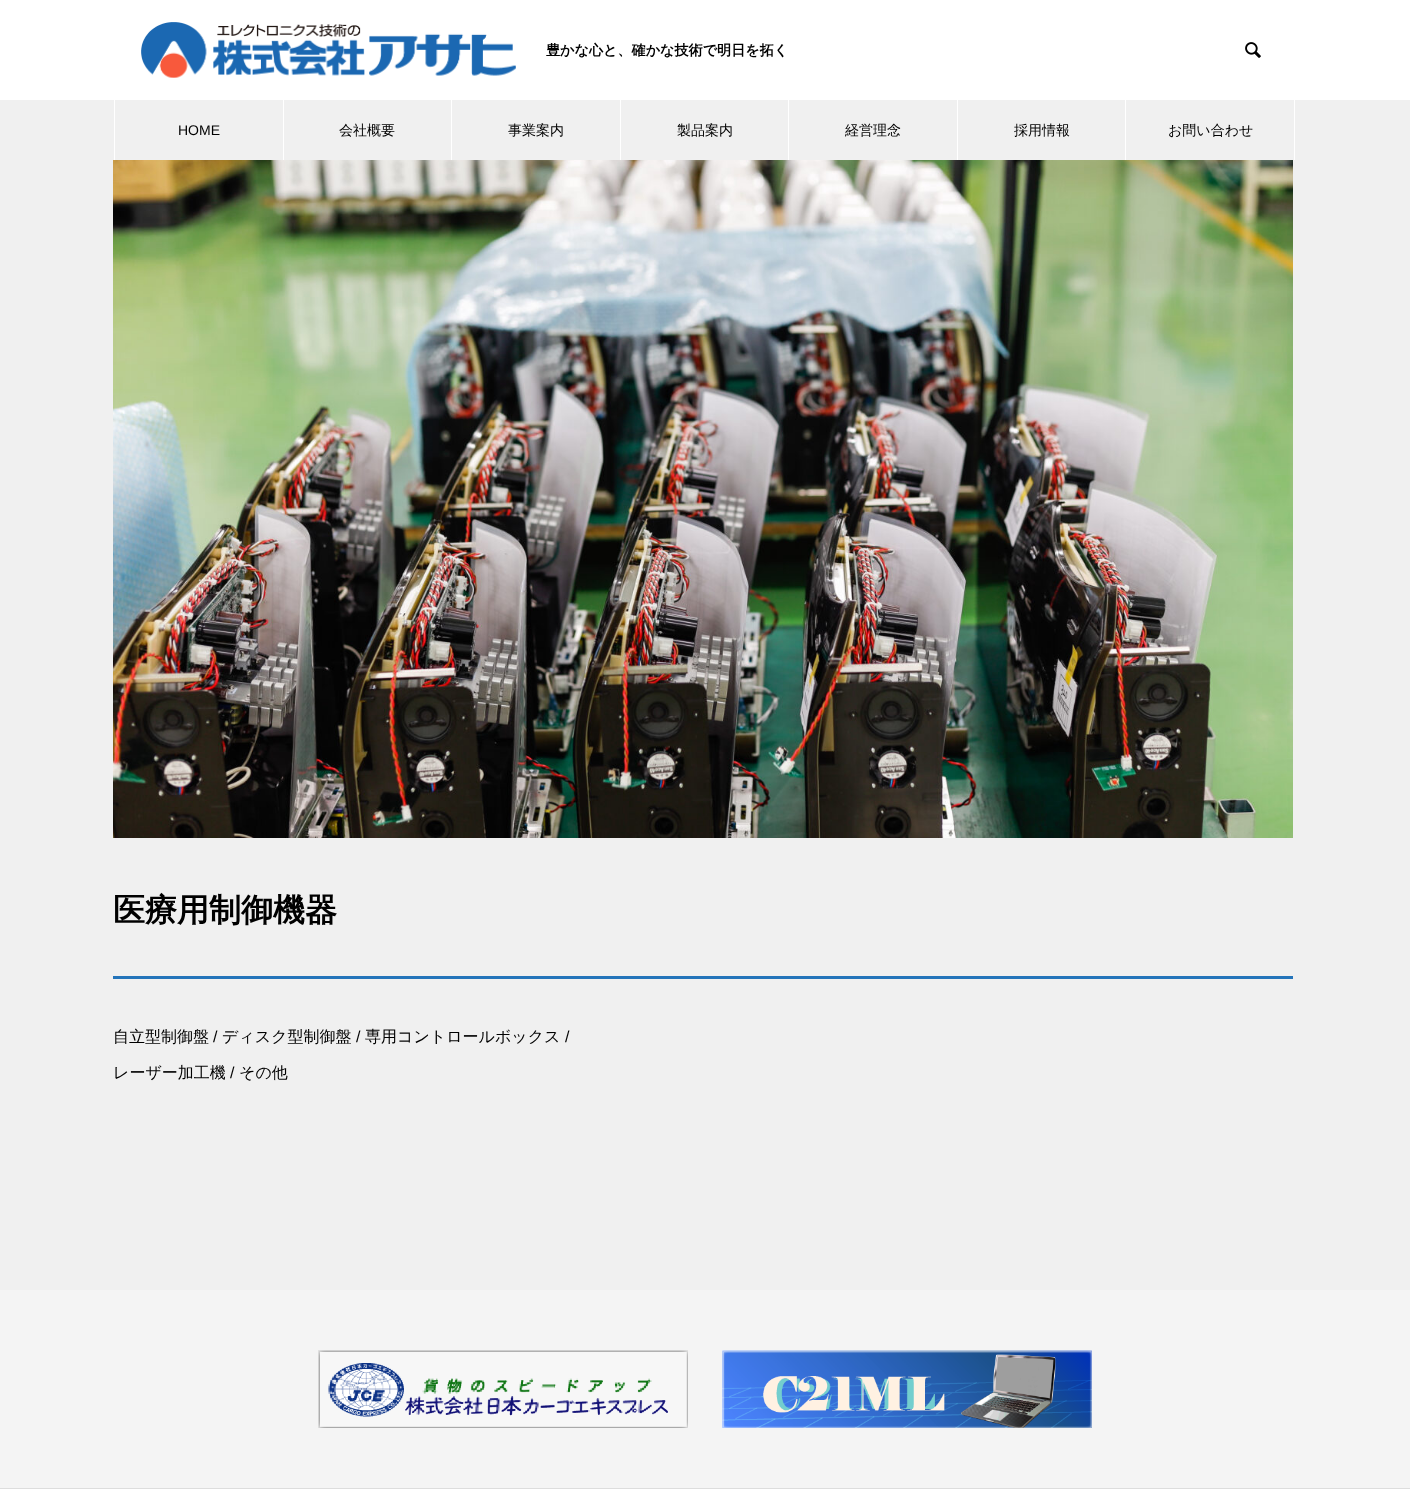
<svg xmlns="http://www.w3.org/2000/svg" width="1410" height="1507" viewBox="0 0 1410 1507">
  <rect width="100%" height="100%" fill="#f0f0f0"/>
  <rect x="0" y="0" width="1410" height="100" fill="#ffffff"/>
  <image x="141" y="22" width="375" height="56" href="img1.png"/>
  <text x="546" y="55" font-family="WenQuanYi Zen Hei" font-size="14.1" font-weight="bold" fill="#000000">豊かな心と、確かな技術で明日を拓く</text>
  <image x="1245" y="42" width="16" height="16" href="img2.png"/>
  <rect x="283" y="100" width="1" height="60" fill="#ffffff"/>
  <rect x="114" y="100" width="1" height="60" fill="#ffffff"/>
  <text x="178" y="135" font-family="Liberation Sans" font-size="14" fill="#000000">HOME</text>
  <rect x="451" y="100" width="1" height="60" fill="#ffffff"/>
  <text x="339" y="135" font-family="WenQuanYi Zen Hei" font-size="14" font-weight="500" fill="#000000">会社概要</text>
  <rect x="620" y="100" width="1" height="60" fill="#ffffff"/>
  <text x="508" y="135" font-family="WenQuanYi Zen Hei" font-size="14" font-weight="500" fill="#000000">事業案内</text>
  <rect x="788" y="100" width="1" height="60" fill="#ffffff"/>
  <text x="677" y="135" font-family="WenQuanYi Zen Hei" font-size="14" font-weight="500" fill="#000000">製品案内</text>
  <text x="845" y="135" font-family="WenQuanYi Zen Hei" font-size="14" font-weight="500" fill="#000000">経営理念</text>
  <rect x="1125" y="100" width="1" height="60" fill="#ffffff"/>
  <rect x="957" y="100" width="1" height="60" fill="#ffffff"/>
  <text x="1014" y="135" font-family="WenQuanYi Zen Hei" font-size="14" font-weight="500" fill="#000000">採用情報</text>
  <rect x="1294" y="100" width="1" height="60" fill="#ffffff"/>
  <text x="1168" y="135" font-family="WenQuanYi Zen Hei" font-size="14" font-weight="500" fill="#000000">お問い合わせ</text>
  <rect x="113" y="976" width="1180" height="3" fill="#2474ba"/>
  <image x="113" y="160" width="1180" height="678" href="img3.png"/>
  <text x="113" y="921" font-family="WenQuanYi Zen Hei" font-size="32" font-weight="bold" fill="#000000">医療用制御機器</text>
  <text x="113" y="1042" font-family="WenQuanYi Zen Hei" font-size="16" font-weight="500" fill="#000000">自立型制御盤</text>
  <text x="213" y="1042" font-family="Liberation Sans" font-size="16" fill="#000000">/</text>
  <text x="222" y="1042" font-family="WenQuanYi Zen Hei" font-size="16" font-weight="500" fill="#000000">ディスク型制御盤</text>
  <text x="356" y="1042" font-family="Liberation Sans" font-size="16" fill="#000000">/</text>
  <text x="365" y="1042" font-family="WenQuanYi Zen Hei" font-size="16" font-weight="500" fill="#000000">専用コントロールボックス</text>
  <text x="565" y="1042" font-family="Liberation Sans" font-size="16" fill="#000000">/</text>
  <text x="113" y="1078" font-family="WenQuanYi Zen Hei" font-size="16" font-weight="500" fill="#000000">レーザー加工機</text>
  <text x="230" y="1078" font-family="Liberation Sans" font-size="16" fill="#000000">/</text>
  <text x="239" y="1078" font-family="WenQuanYi Zen Hei" font-size="16" font-weight="500" fill="#000000">その他</text>
  <rect x="0" y="1290" width="1410" height="198" fill="#f4f4f4"/>
  <rect x="0" y="1488" width="1410" height="1" fill="#dddddd"/>
  <image x="318" y="1350" width="370" height="78" href="img4.png"/>
  <image x="722" y="1350" width="370" height="78" href="img5.png"/>
  <rect x="0" y="1489" width="1410" height="18" fill="#ffffff"/>
</svg>
